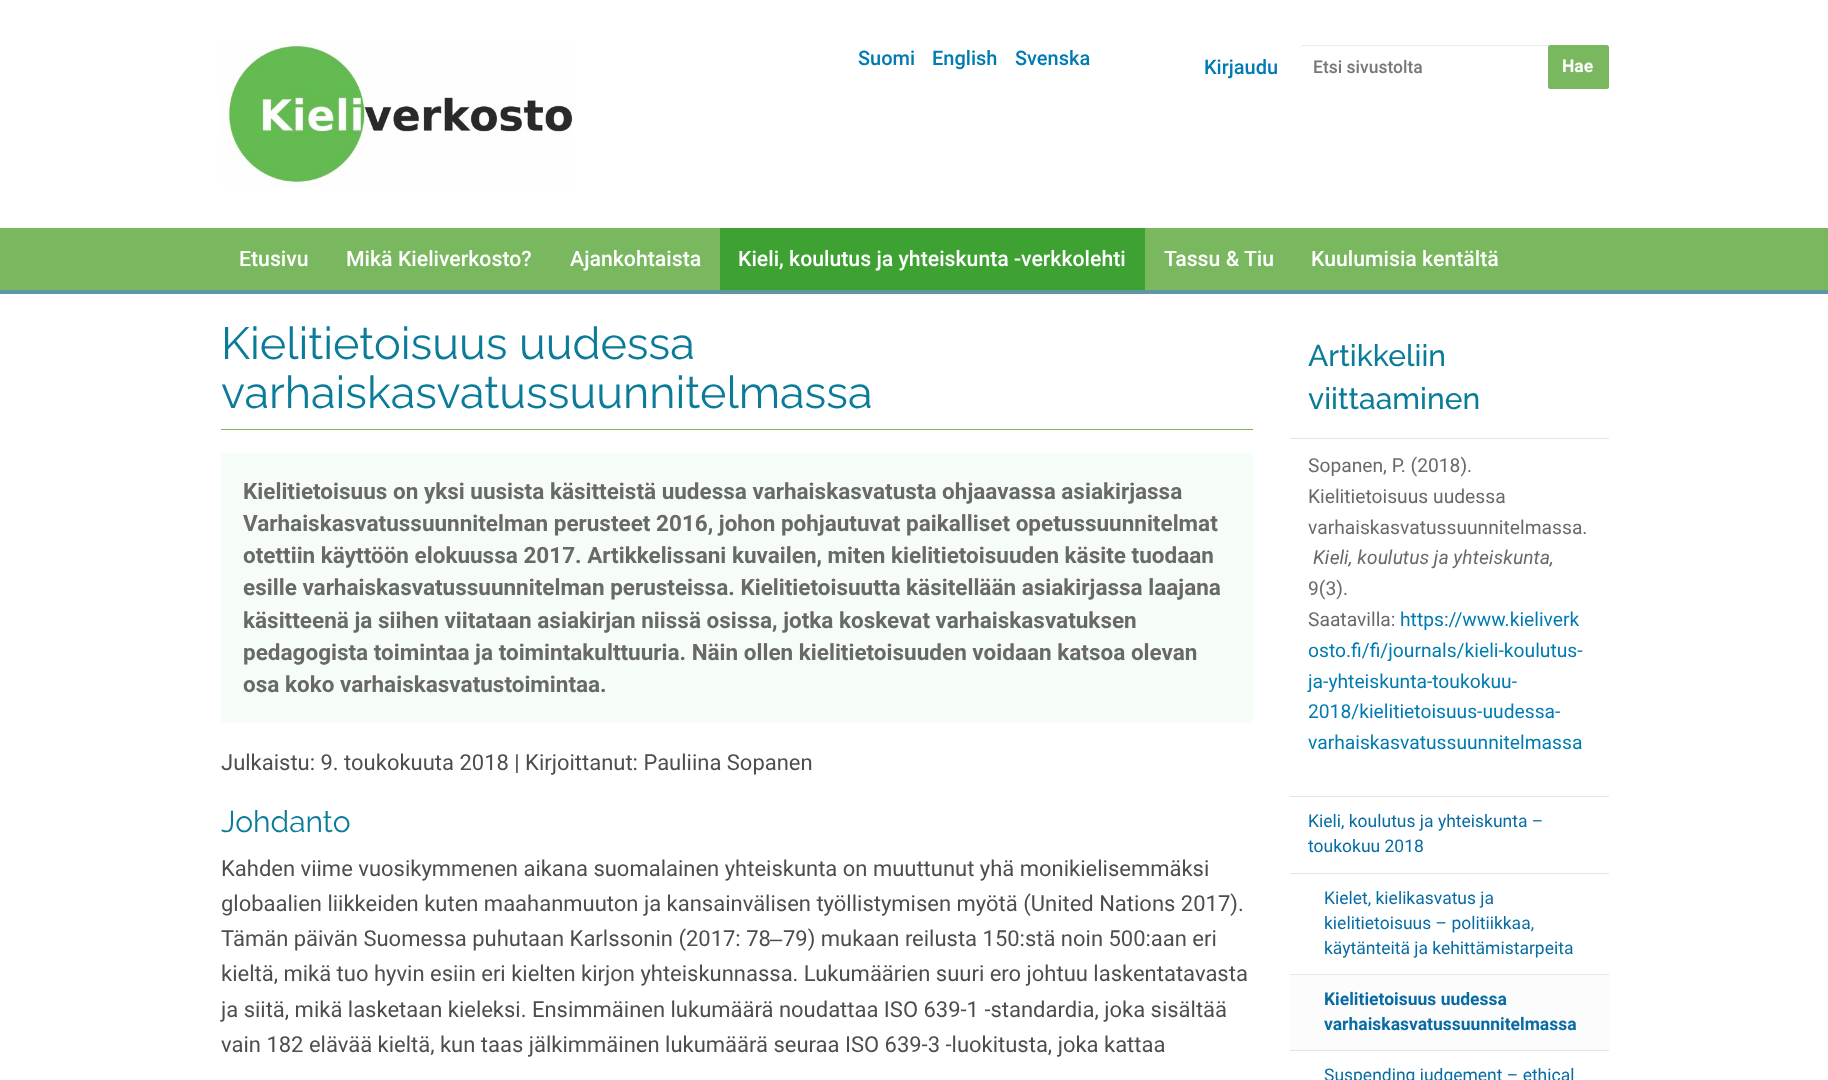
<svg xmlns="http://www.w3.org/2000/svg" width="1828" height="1080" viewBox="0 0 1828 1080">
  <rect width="100%" height="100%" fill="#ffffff"/>
  <image x="221" y="39" width="352" height="150" href="img1.png"/>
  <text x="858" y="65" font-family="Roboto" font-size="20" font-weight="500" fill="#007bb1">Suomi</text>
  <text x="932" y="65" font-family="Roboto" font-size="20" font-weight="500" fill="#007bb1">English</text>
  <text x="1015" y="65" font-family="Roboto" font-size="20" font-weight="500" fill="#007bb1">Svenska</text>
  <text x="1204" y="74" font-family="Roboto" font-size="20" font-weight="500" fill="#007bb1">Kirjaudu</text>
  <path d="M1304 46H1549V45H1304C1301 45 1299 47 1299 50V51C1299 48 1301 46 1304 46Z" fill="#ececec"/>
  <text x="1313" y="73" font-family="Roboto" font-size="17.5" font-weight="500" fill="#777777">Etsi sivustolta</text>
  <rect x="1548" y="45" width="61" height="44" rx="2.5" fill="#79b85f"/>
  <text x="1562" y="72" font-family="Roboto" font-size="17.5" font-weight="bold" fill="#ffffff">Hae</text>
  <rect x="0" y="228" width="1828" height="62" fill="#79b85f"/>
  <rect x="0" y="290" width="1828" height="4" fill="#5e96a4"/>
  <text x="239" y="266" font-family="Roboto" font-size="21.25" font-weight="500" fill="#ffffff">Etusivu</text>
  <text x="346" y="266" font-family="Roboto" font-size="21.25" font-weight="500" fill="#ffffff">Mikä Kieliverkosto?</text>
  <text x="570" y="266" font-family="Roboto" font-size="21.25" font-weight="500" fill="#ffffff">Ajankohtaista</text>
  <rect x="720" y="228" width="425" height="62" fill="#3ea233"/>
  <text x="738" y="266" font-family="Roboto" font-size="21.25" font-weight="500" fill="#ffffff">Kieli, koulutus ja yhteiskunta -verkkolehti</text>
  <text x="1164" y="266" font-family="Roboto" font-size="21.25" font-weight="500" fill="#ffffff">Tassu &amp; Tiu</text>
  <text x="1311" y="266" font-family="Roboto" font-size="21.25" font-weight="500" fill="#ffffff">Kuulumisia kentältä</text>
  <rect x="221" y="429" width="1032" height="1" fill="#79b85f"/>
  <text x="221" y="359" font-family="Raleway" font-size="45" fill="#0a7b98">Kielitietoisuus uudessa</text>
  <text x="221" y="408" font-family="Raleway" font-size="45" fill="#0a7b98">varhaiskasvatussuunnitelmassa</text>
  <rect x="221" y="453" width="1032" height="270" fill="#f6fcf6"/>
  <text x="243" y="499" font-family="Roboto" font-size="22.5" font-weight="bold" fill="#696969">Kielitietoisuus on yksi uusista käsitteistä uudessa varhaiskasvatusta ohjaavassa asiakirjassa</text>
  <text x="243" y="531" font-family="Roboto" font-size="22.5" font-weight="bold" fill="#696969">Varhaiskasvatussuunnitelman perusteet 2016, johon pohjautuvat paikalliset opetussuunnitelmat</text>
  <text x="243" y="563" font-family="Roboto" font-size="22.5" font-weight="bold" fill="#696969">otettiin käyttöön elokuussa 2017. Artikkelissani kuvailen, miten kielitietoisuuden käsite tuodaan</text>
  <text x="243" y="595" font-family="Roboto" font-size="22.5" font-weight="bold" fill="#696969">esille varhaiskasvatussuunnitelman perusteissa. Kielitietoisuutta käsitellään asiakirjassa laajana</text>
  <text x="243" y="628" font-family="Roboto" font-size="22.5" font-weight="bold" fill="#696969">käsitteenä ja siihen viitataan asiakirjan niissä osissa, jotka koskevat varhaiskasvatuksen</text>
  <text x="243" y="660" font-family="Roboto" font-size="22.5" font-weight="bold" fill="#696969">pedagogista toimintaa ja toimintakulttuuria. Näin ollen kielitietoisuuden voidaan katsoa olevan</text>
  <text x="243" y="692" font-family="Roboto" font-size="22.5" font-weight="bold" fill="#696969">osa koko varhaiskasvatustoimintaa.</text>
  <text x="221" y="770" font-family="Roboto" font-size="22" fill="#4d4d4d">Julkaistu: 9. toukokuuta 2018 | Kirjoittanut: Pauliina Sopanen</text>
  <text x="221" y="832" font-family="Raleway" font-size="30" fill="#0a7b98">Johdanto</text>
  <text x="221" y="876" font-family="Roboto" font-size="22" fill="#4d4d4d">Kahden viime vuosikymmenen aikana suomalainen yhteiskunta on muuttunut yhä monikielisemmäksi</text>
  <text x="221" y="911" font-family="Roboto" font-size="22" fill="#4d4d4d">globaalien liikkeiden kuten maahanmuuton ja kansainvälisen työllistymisen myötä (United Nations 2017).</text>
  <text x="221" y="946" font-family="Roboto" font-size="22" fill="#4d4d4d">Tämän päivän Suomessa puhutaan Karlssonin (2017: 78</text>
  <text x="770" y="946" font-family="Liberation Sans" font-size="22" fill="#4d4d4d">‒</text>
  <text x="783" y="946" font-family="Roboto" font-size="22" fill="#4d4d4d">79) mukaan reilusta 150:stä noin 500:aan eri</text>
  <text x="221" y="981" font-family="Roboto" font-size="22" fill="#4d4d4d">kieltä, mikä tuo hyvin esiin eri kielten kirjon yhteiskunnassa. Lukumäärien suuri ero johtuu laskentatavasta</text>
  <text x="221" y="1017" font-family="Roboto" font-size="22" fill="#4d4d4d">ja siitä, mikä lasketaan kieleksi. Ensimmäinen lukumäärä noudattaa ISO 639-1 -standardia, joka sisältää</text>
  <text x="221" y="1052" font-family="Roboto" font-size="22" fill="#4d4d4d">vain 182 elävää kieltä, kun taas jälkimmäinen lukumäärä seuraa ISO 639-3 -luokitusta, joka kattaa</text>
  <text x="1308" y="366" font-family="Raleway" font-size="30" font-weight="500" fill="#0a7b98">Artikkeliin</text>
  <text x="1308" y="409" font-family="Raleway" font-size="30" font-weight="500" fill="#0a7b98">viittaaminen</text>
  <rect x="1290" y="438" width="319" height="1" fill="#e5e5e5"/>
  <text x="1308" y="472" font-family="Roboto" font-size="19.25" fill="#696969">Sopanen, P. (2018).</text>
  <text x="1308" y="503" font-family="Roboto" font-size="19.25" fill="#696969">Kielitietoisuus uudessa</text>
  <text x="1308" y="534" font-family="Roboto" font-size="19.25" fill="#696969">varhaiskasvatussuunnitelmassa.</text>
  <text x="1313" y="564" font-family="Roboto" font-size="19.25" font-style="italic" fill="#696969">Kieli, koulutus ja yhteiskunta,</text>
  <text x="1308" y="595" font-family="Roboto" font-size="19.25" fill="#696969">9(3).</text>
  <text x="1308" y="626" font-family="Roboto" font-size="19.25" fill="#696969">Saatavilla:</text>
  <text x="1400" y="626" font-family="Roboto" font-size="19.25" fill="#007bb1">https://www.kieliverk</text>
  <text x="1308" y="657" font-family="Roboto" font-size="19.25" fill="#007bb1">osto.fi/fi/journals/kieli-koulutus-</text>
  <text x="1308" y="688" font-family="Roboto" font-size="19.25" fill="#007bb1">ja-yhteiskunta-toukokuu-</text>
  <text x="1308" y="718" font-family="Roboto" font-size="19.25" fill="#007bb1">2018/kielitietoisuus-uudessa-</text>
  <text x="1308" y="749" font-family="Roboto" font-size="19.25" fill="#007bb1">varhaiskasvatussuunnitelmassa</text>
  <rect x="1290" y="796" width="319" height="1" fill="#e5e5e5"/>
  <text x="1308" y="827" font-family="Roboto" font-size="17.5" fill="#086ca3">Kieli, koulutus ja yhteiskunta –</text>
  <text x="1308" y="852" font-family="Roboto" font-size="17.5" fill="#086ca3">toukokuu 2018</text>
  <rect x="1290" y="873" width="319" height="1" fill="#e5e5e5"/>
  <text x="1324" y="904" font-family="Roboto" font-size="17.5" fill="#086ca3">Kielet, kielikasvatus ja</text>
  <text x="1324" y="929" font-family="Roboto" font-size="17.5" fill="#086ca3">kielitietoisuus – politiikkaa,</text>
  <text x="1324" y="954" font-family="Roboto" font-size="17.5" fill="#086ca3">käytänteitä ja kehittämistarpeita</text>
  <rect x="1290" y="975" width="319" height="75" fill="#fcfcfd"/>
  <rect x="1290" y="974" width="319" height="1" fill="#e5e5e5"/>
  <text x="1324" y="1005" font-family="Roboto" font-size="17.5" font-weight="bold" fill="#086ca3">Kielitietoisuus uudessa</text>
  <text x="1324" y="1030" font-family="Roboto" font-size="17.5" font-weight="bold" fill="#086ca3">varhaiskasvatussuunnitelmassa</text>
  <rect x="1290" y="1050" width="319" height="1" fill="#e5e5e5"/>
  <text x="1324" y="1081" font-family="Roboto" font-size="17.5" fill="#086ca3">Suspending judgement – ethical</text>
</svg>
